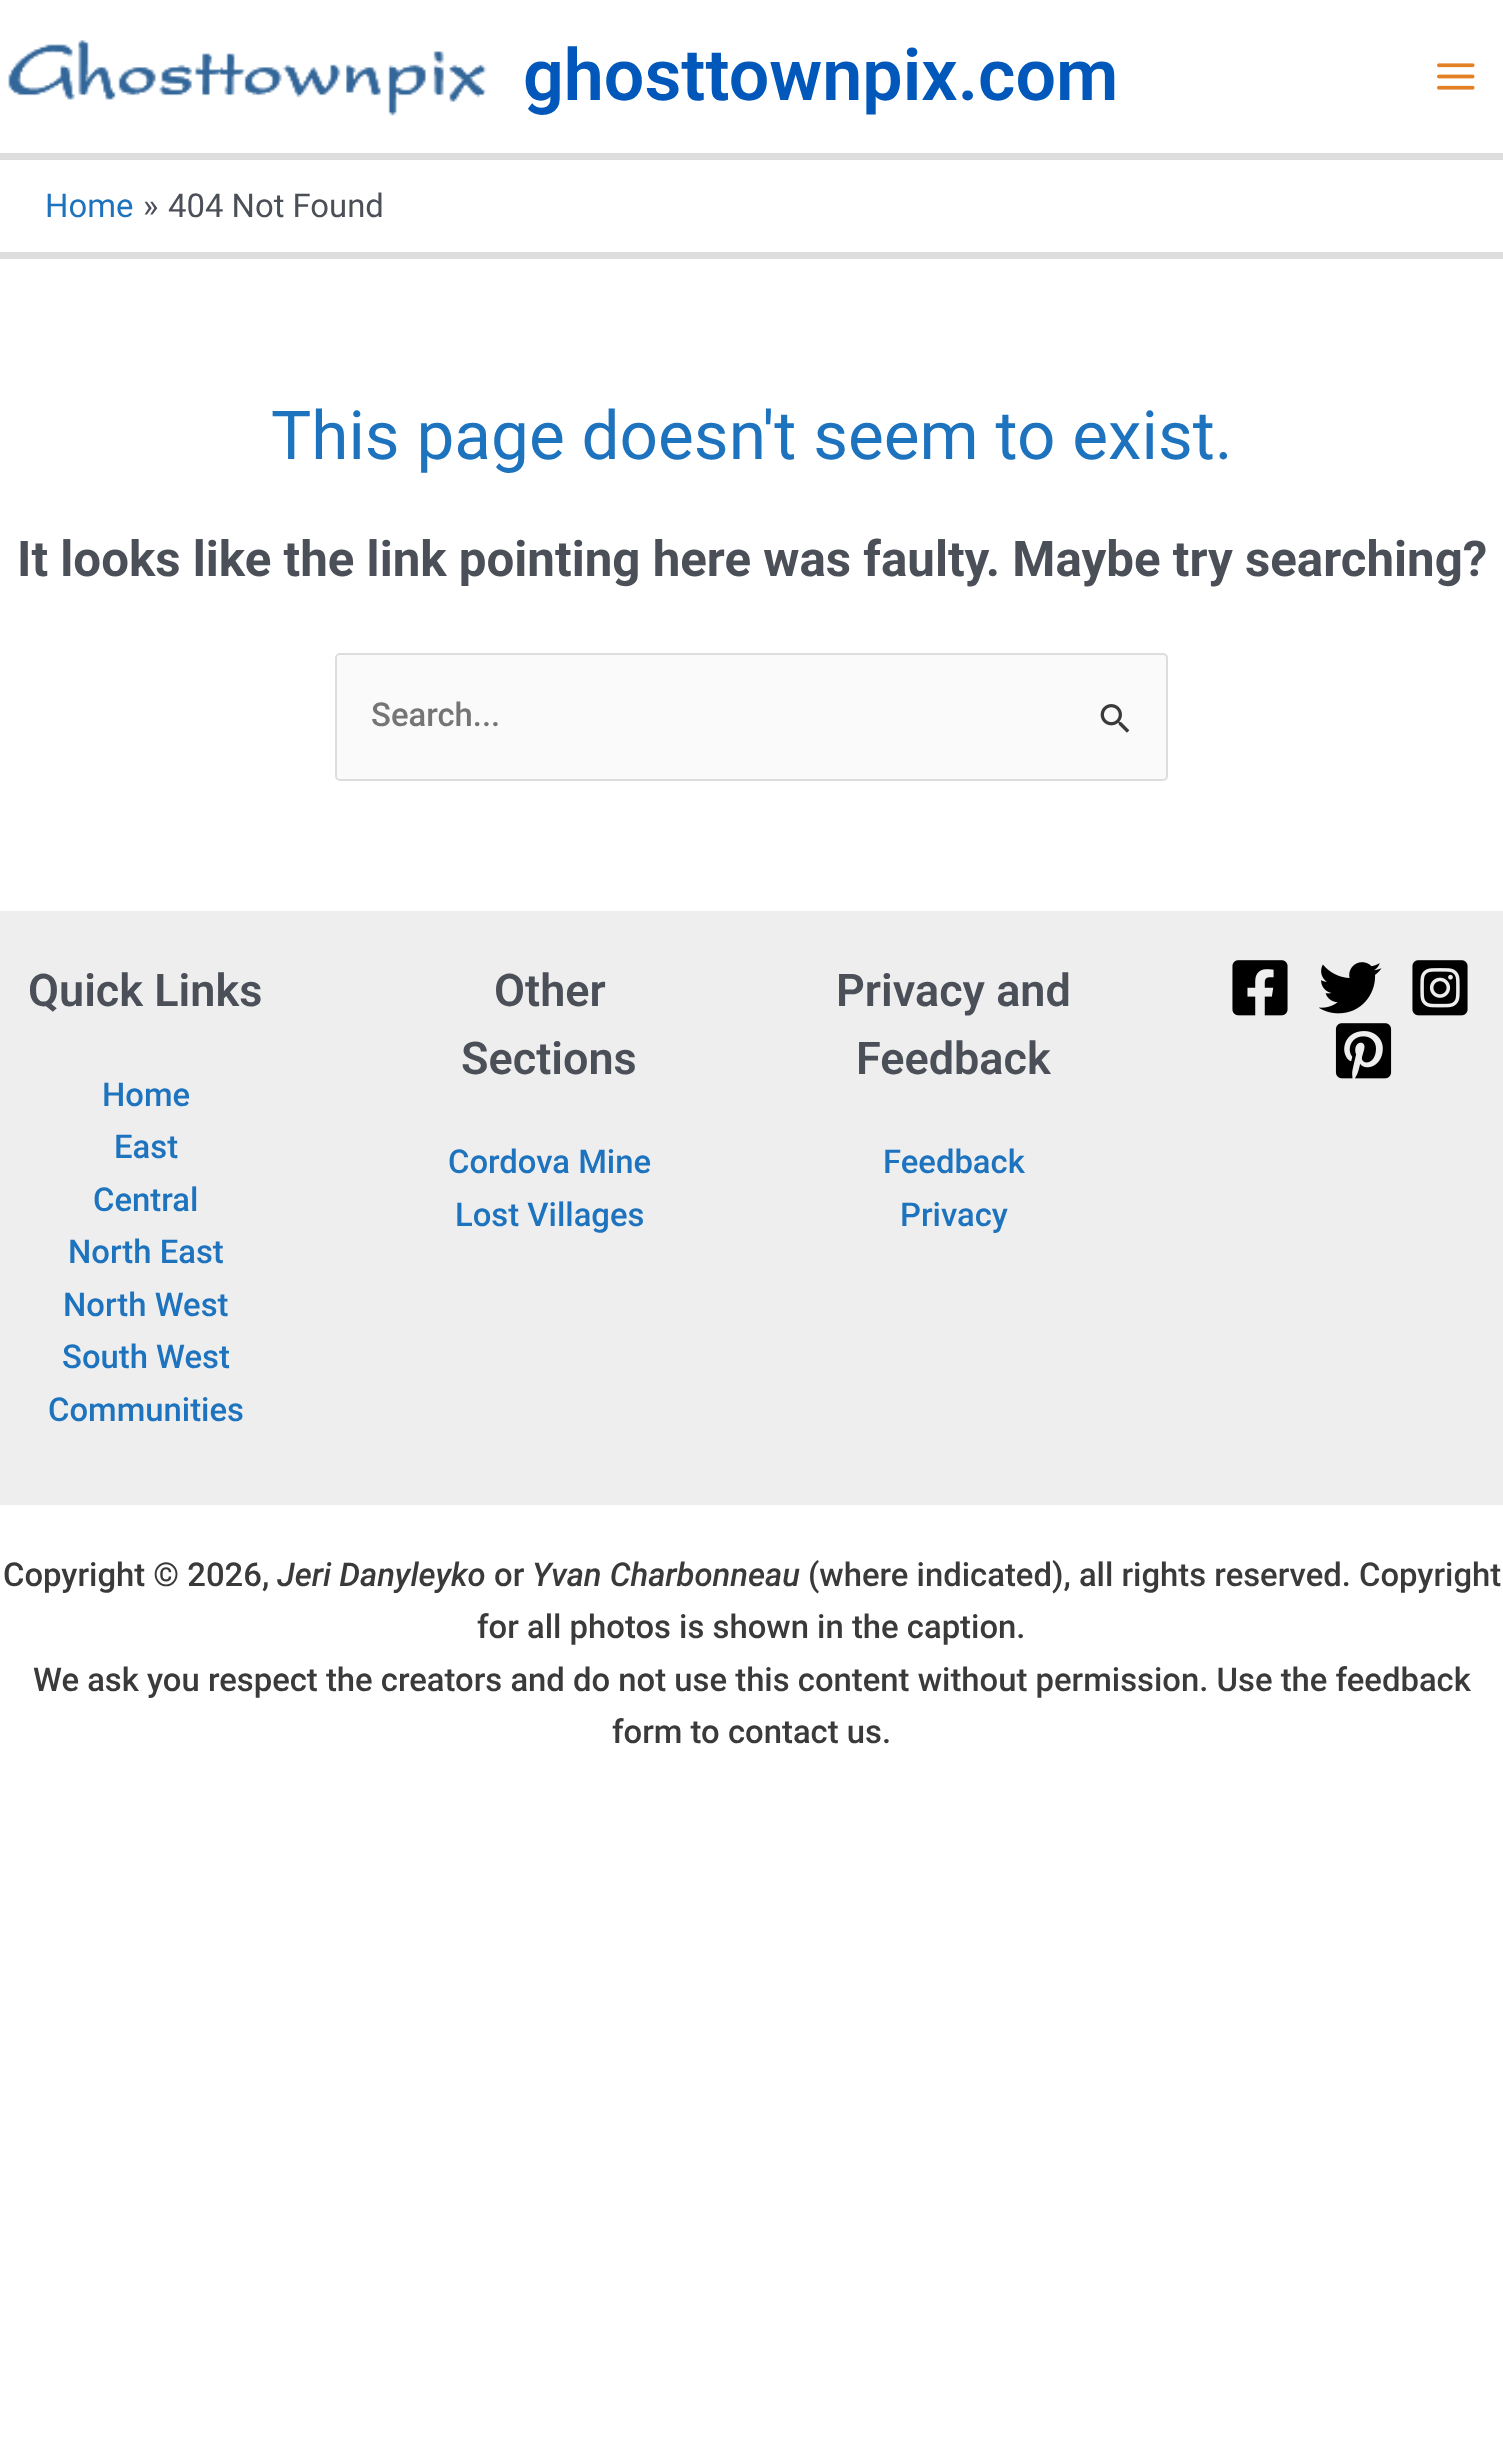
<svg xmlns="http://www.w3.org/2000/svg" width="1503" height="2464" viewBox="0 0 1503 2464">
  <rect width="100%" height="100%" fill="#ffffff"/>
  <rect x="0" y="153" width="1503" height="7" fill="#dddddd"/>
  <image x="8" y="40" width="479" height="76" href="img1.png"/>
  <text x="523" y="100" font-family="Roboto" font-size="71.75" font-weight="600" fill="#0258ba">ghosttownpix.com</text>
  <image x="1437" y="63" width="38" height="27" href="img2.png"/>
  <rect x="0" y="252" width="1503" height="7" fill="#dddddd"/>
  <text x="45" y="217" font-family="Roboto" font-size="32.85" fill="#1e73be">Home</text>
  <text x="143" y="217" font-family="Roboto" font-size="32.85" fill="#4b4f58">»</text>
  <text x="168" y="217" font-family="Roboto" font-size="32.85" fill="#4b4f58">404 Not Found</text>
  <text x="271" y="459" font-family="Roboto" font-size="67.5" fill="#1e73be">This page doesn't seem to exist.</text>
  <text x="17" y="576" font-family="Roboto" font-size="49.25" font-weight="bold" fill="#4b4f58">It looks like the link pointing here was faulty. Maybe try searching?</text>
  <rect x="336" y="654" width="831" height="126" rx="4" fill="#fafafa" stroke="#dddddd" stroke-width="2"/>
  <text x="371" y="726" font-family="Roboto" font-size="32.85" font-weight="500" fill="#757575">Search...</text>
  <image x="1100" y="704" width="30" height="29" href="img3.png"/>
  <rect x="0" y="911" width="1503" height="594" fill="#eeeeee"/>
  <text x="28" y="1006" font-family="Roboto" font-size="45" font-weight="600" fill="#4b4f58">Quick Links</text>
  <text x="102" y="1106" font-family="Roboto" font-size="32.85" font-weight="500" fill="#1e73be">Home</text>
  <text x="114" y="1158" font-family="Roboto" font-size="32.85" font-weight="500" fill="#1e73be">East</text>
  <text x="93" y="1211" font-family="Roboto" font-size="32.85" font-weight="500" fill="#1e73be">Central</text>
  <text x="68" y="1263" font-family="Roboto" font-size="32.85" font-weight="500" fill="#1e73be">North East</text>
  <text x="63" y="1316" font-family="Roboto" font-size="32.85" font-weight="500" fill="#1e73be">North West</text>
  <text x="62" y="1368" font-family="Roboto" font-size="32.85" font-weight="500" fill="#1e73be">South West</text>
  <text x="48" y="1421" font-family="Roboto" font-size="32.85" font-weight="500" fill="#1e73be">Communities</text>
  <text x="494" y="1006" font-family="Roboto" font-size="45" font-weight="600" fill="#4b4f58">Other</text>
  <text x="461" y="1074" font-family="Roboto" font-size="45" font-weight="600" fill="#4b4f58">Sections</text>
  <text x="448" y="1173" font-family="Roboto" font-size="32.85" font-weight="500" fill="#1e73be">Cordova Mine</text>
  <text x="455" y="1226" font-family="Roboto" font-size="32.85" font-weight="500" fill="#1e73be">Lost Villages</text>
  <text x="836" y="1006" font-family="Roboto" font-size="45" font-weight="600" fill="#4b4f58">Privacy and</text>
  <text x="856" y="1074" font-family="Roboto" font-size="45" font-weight="600" fill="#4b4f58">Feedback</text>
  <text x="883" y="1173" font-family="Roboto" font-size="32.85" font-weight="500" fill="#1e73be">Feedback</text>
  <text x="900" y="1226" font-family="Roboto" font-size="32.85" font-weight="500" fill="#1e73be">Privacy</text>
  <image x="1232" y="960" width="56" height="56" href="img4.png"/>
  <image x="1319" y="962" width="63" height="52" href="img5.png"/>
  <image x="1412" y="960" width="56" height="56" href="img6.png"/>
  <image x="1335" y="1023" width="57" height="56" href="img7.png"/>
  <text x="3" y="1586" font-family="Roboto" font-size="32.85" font-weight="500" fill="#3a3a3a">Copyright © 2026,</text>
  <text x="277" y="1586" font-family="Roboto" font-size="32.85" font-weight="500" font-style="italic" fill="#3a3a3a">Jeri Danyleyko</text>
  <text x="494" y="1586" font-family="Roboto" font-size="32.85" font-weight="500" fill="#3a3a3a">or</text>
  <text x="532" y="1586" font-family="Roboto" font-size="32.85" font-weight="500" font-style="italic" fill="#3a3a3a">Yvan Charbonneau</text>
  <text x="808" y="1586" font-family="Roboto" font-size="32.85" font-weight="500" fill="#3a3a3a">(where indicated), all rights reserved. Copyright</text>
  <text x="477" y="1638" font-family="Roboto" font-size="32.85" font-weight="500" fill="#3a3a3a">for all photos is shown in the caption.</text>
  <text x="33" y="1691" font-family="Roboto" font-size="32.85" font-weight="500" fill="#3a3a3a">We ask you respect the creators and do not use this content without permission. Use the feedback</text>
  <text x="612" y="1743" font-family="Roboto" font-size="32.85" font-weight="500" fill="#3a3a3a">form to contact us.</text>
</svg>
